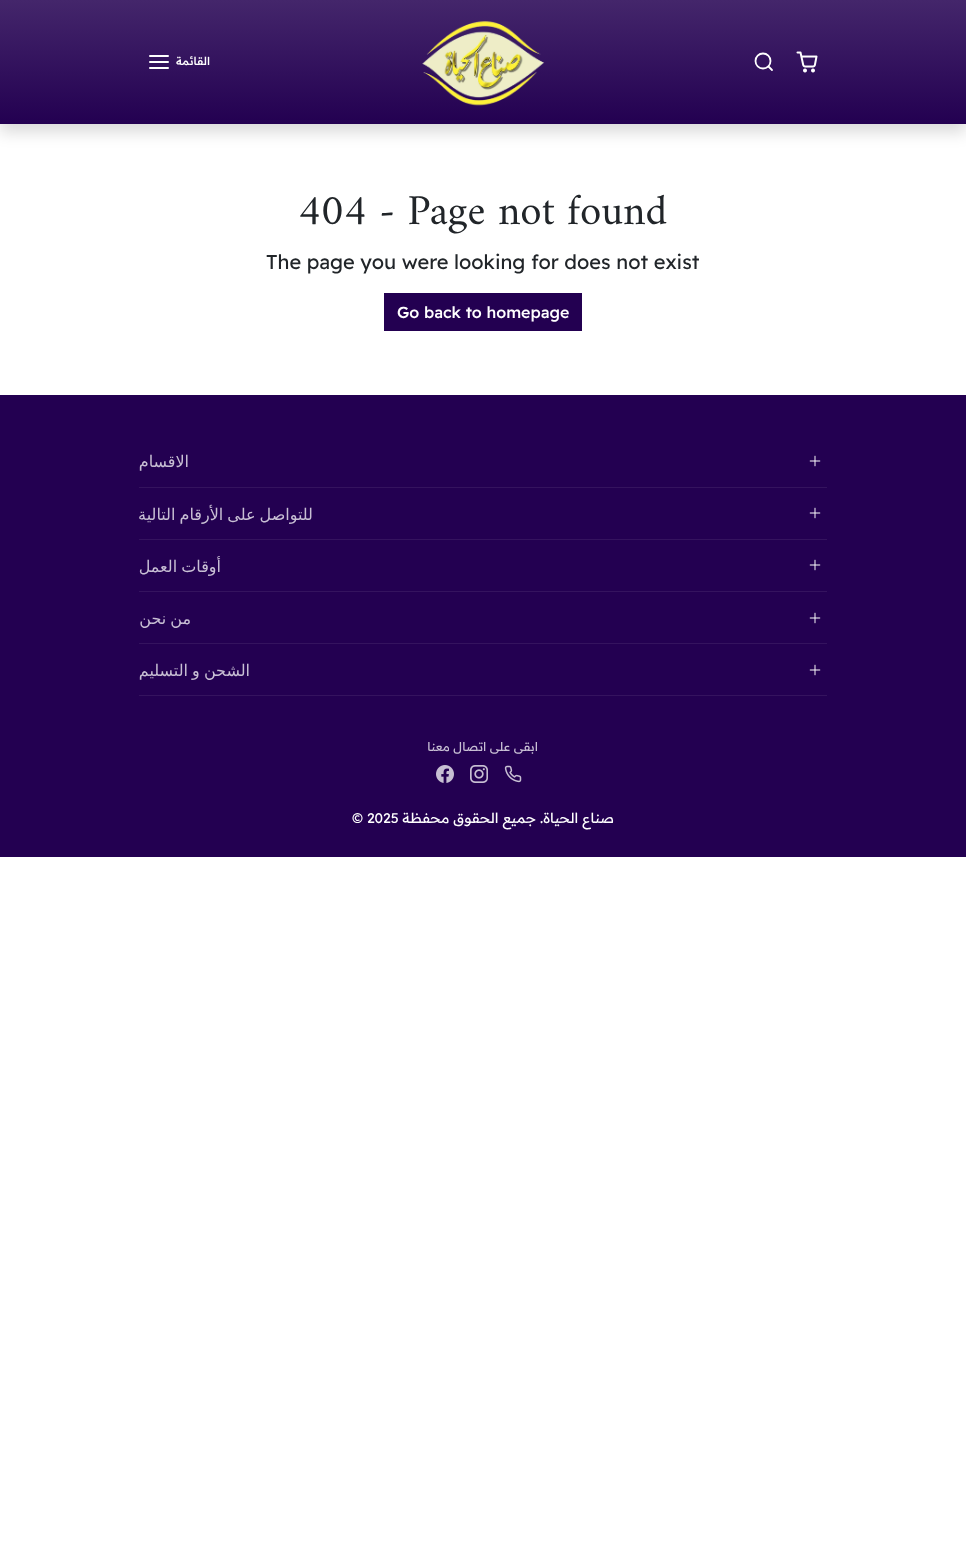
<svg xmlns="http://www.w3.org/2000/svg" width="966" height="1552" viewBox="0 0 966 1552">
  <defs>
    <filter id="blur1" x="-50%" y="-200%" width="200%" height="500%"><feGaussianBlur stdDeviation="8"/></filter>
    <linearGradient id="g1" gradientUnits="userSpaceOnUse" x1="483" y1="0" x2="483" y2="124"><stop offset="0" stop-color="#44266b"/><stop offset="1" stop-color="#230051"/></linearGradient>
  </defs>
  <rect width="100%" height="100%" fill="#ffffff"/>
  <rect x="0" y="8" width="966" height="124" fill="#000000" fill-opacity="0.15" filter="url(#blur1)"/>
  <rect x="0" y="0" width="966" height="124" fill="url(#g1)"/>
  <image x="796" y="51" width="22" height="22" href="img1.png"/>
  <circle cx="763" cy="61" r="7.5" fill="none" stroke="#ffffff" stroke-width="1.8"/>
  <path d="M772 70L768.5 66.5" fill="none" stroke="#ffffff" stroke-width="1.8" stroke-linecap="round" stroke-linejoin="round"/>
  <image x="422" y="21" width="123" height="85" href="img2.png"/>
  <text x="210" y="65" font-family="Readex Pro" font-size="11" font-weight="500" direction="rtl" fill="#ffffff">القائمة</text>
  <path d="M150 62H168M150 56H168M150 68H168" fill="none" stroke="#ffffff" stroke-width="2" stroke-linecap="round" stroke-linejoin="round"/>
  <text x="298" y="224" font-family="Amiri" font-size="43" fill="#212529">404 - Page not found</text>
  <text x="266" y="269" font-family="Readex Pro" font-size="20" fill="#212529">The page you were looking for does not exist</text>
  <rect x="384" y="293" width="198" height="38" fill="#230051"/>
  <text x="397" y="318" font-family="Readex Pro" font-size="16" font-weight="500" fill="#ffffff">Go back to homepage</text>
  <rect x="0" y="395" width="966" height="462" fill="#230051"/>
  <rect x="139" y="487" width="688" height="1" fill="#34135e"/>
  <image x="809" y="455" width="12" height="12" href="img3.png"/>
  <text x="189" y="467" font-family="DejaVu Sans" font-size="16" direction="rtl" fill="#c8bfd4">الاقسام</text>
  <rect x="139" y="539" width="688" height="1" fill="#34135e"/>
  <image x="809" y="507" width="12" height="12" href="img3.png"/>
  <text x="313" y="520" word-spacing="-1" font-family="DejaVu Sans" font-size="16" direction="rtl" fill="#c8bfd4">للتواصل على الأرقام التالية</text>
  <rect x="139" y="591" width="688" height="1" fill="#34135e"/>
  <image x="809" y="559" width="12" height="12" href="img3.png"/>
  <text x="221" y="572" word-spacing="-1" font-family="DejaVu Sans" font-size="16" direction="rtl" fill="#c8bfd4">أوقات العمل</text>
  <rect x="139" y="643" width="688" height="1" fill="#34135e"/>
  <image x="809" y="612" width="12" height="12" href="img3.png"/>
  <text x="191" y="624" word-spacing="-1" font-family="DejaVu Sans" font-size="16" direction="rtl" fill="#c8bfd4">من نحن</text>
  <rect x="139" y="695" width="688" height="1" fill="#34135e"/>
  <image x="809" y="664" width="12" height="12" href="img3.png"/>
  <text x="250" y="676" word-spacing="-1" font-family="DejaVu Sans" font-size="16" direction="rtl" fill="#c8bfd4">الشحن و التسليم</text>
  <text x="538" y="751" font-family="Readex Pro" font-size="12.25" direction="rtl" fill="#c8bfd4">ابقى على اتصال معنا</text>
  <image x="504" y="765" width="18" height="18" href="img4.png"/>
  <image x="470" y="765" width="18" height="18" href="img5.png"/>
  <image x="436" y="765" width="18" height="18" href="img6.png"/>
  <text x="614" y="823" font-family="Readex Pro" font-size="14" direction="rtl" fill="#ffffff">صناع الحياة. جميع الحقوق محفظة</text>
  <text x="352" y="823" font-family="Readex Pro" font-size="14" fill="#ffffff">© 2025</text>
</svg>
